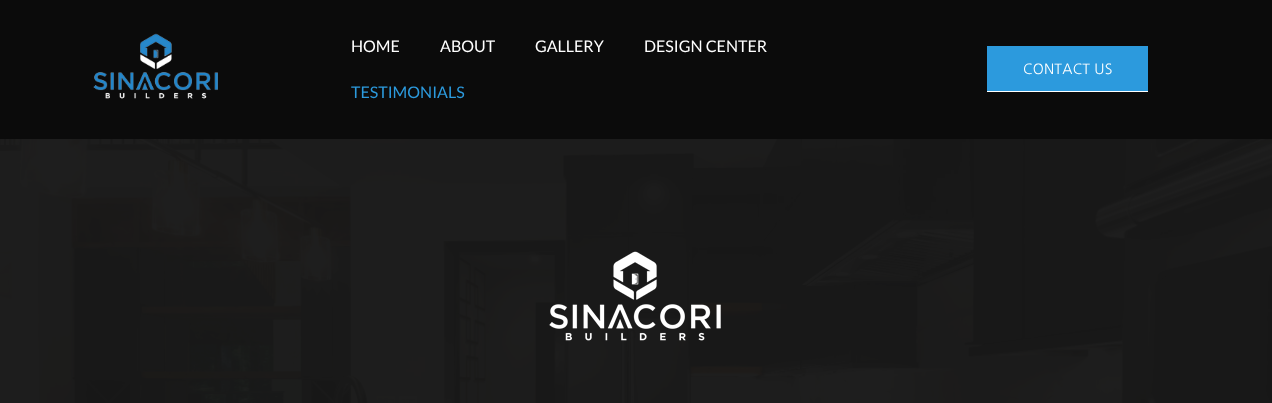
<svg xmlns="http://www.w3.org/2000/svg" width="1272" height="403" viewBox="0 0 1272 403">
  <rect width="100%" height="100%" fill="#ffffff"/>
  <rect x="0" y="0" width="1272" height="139" fill="#0b0b0b"/>
  <image x="93" y="33" width="125" height="66" href="img1.png"/>
  <text x="351" y="52" font-family="Lato" font-size="16" fill="#ffffff">HOME</text>
  <text x="440" y="52" font-family="Lato" font-size="16" fill="#ffffff">ABOUT</text>
  <text x="535" y="52" font-family="Lato" font-size="16" fill="#ffffff">GALLERY</text>
  <text x="644" y="52" font-family="Lato" font-size="16" fill="#ffffff">DESIGN CENTER</text>
  <text x="351" y="98" font-family="Lato" font-size="16" fill="#2c9add">TESTIMONIALS</text>
  <rect x="987" y="46" width="161" height="45" fill="#2c9add"/>
  <rect x="987" y="91" width="161" height="1" fill="#ffffff"/>
  <text x="1023" y="74" font-family="NanumGothic" font-size="14" letter-spacing="0.25" fill="#ffffff">CONTACT US</text>
  <image x="0" y="139" width="1272" height="264" href="img2.png"/>
  <image x="549" y="251" width="172" height="90" href="img3.png"/>
</svg>
